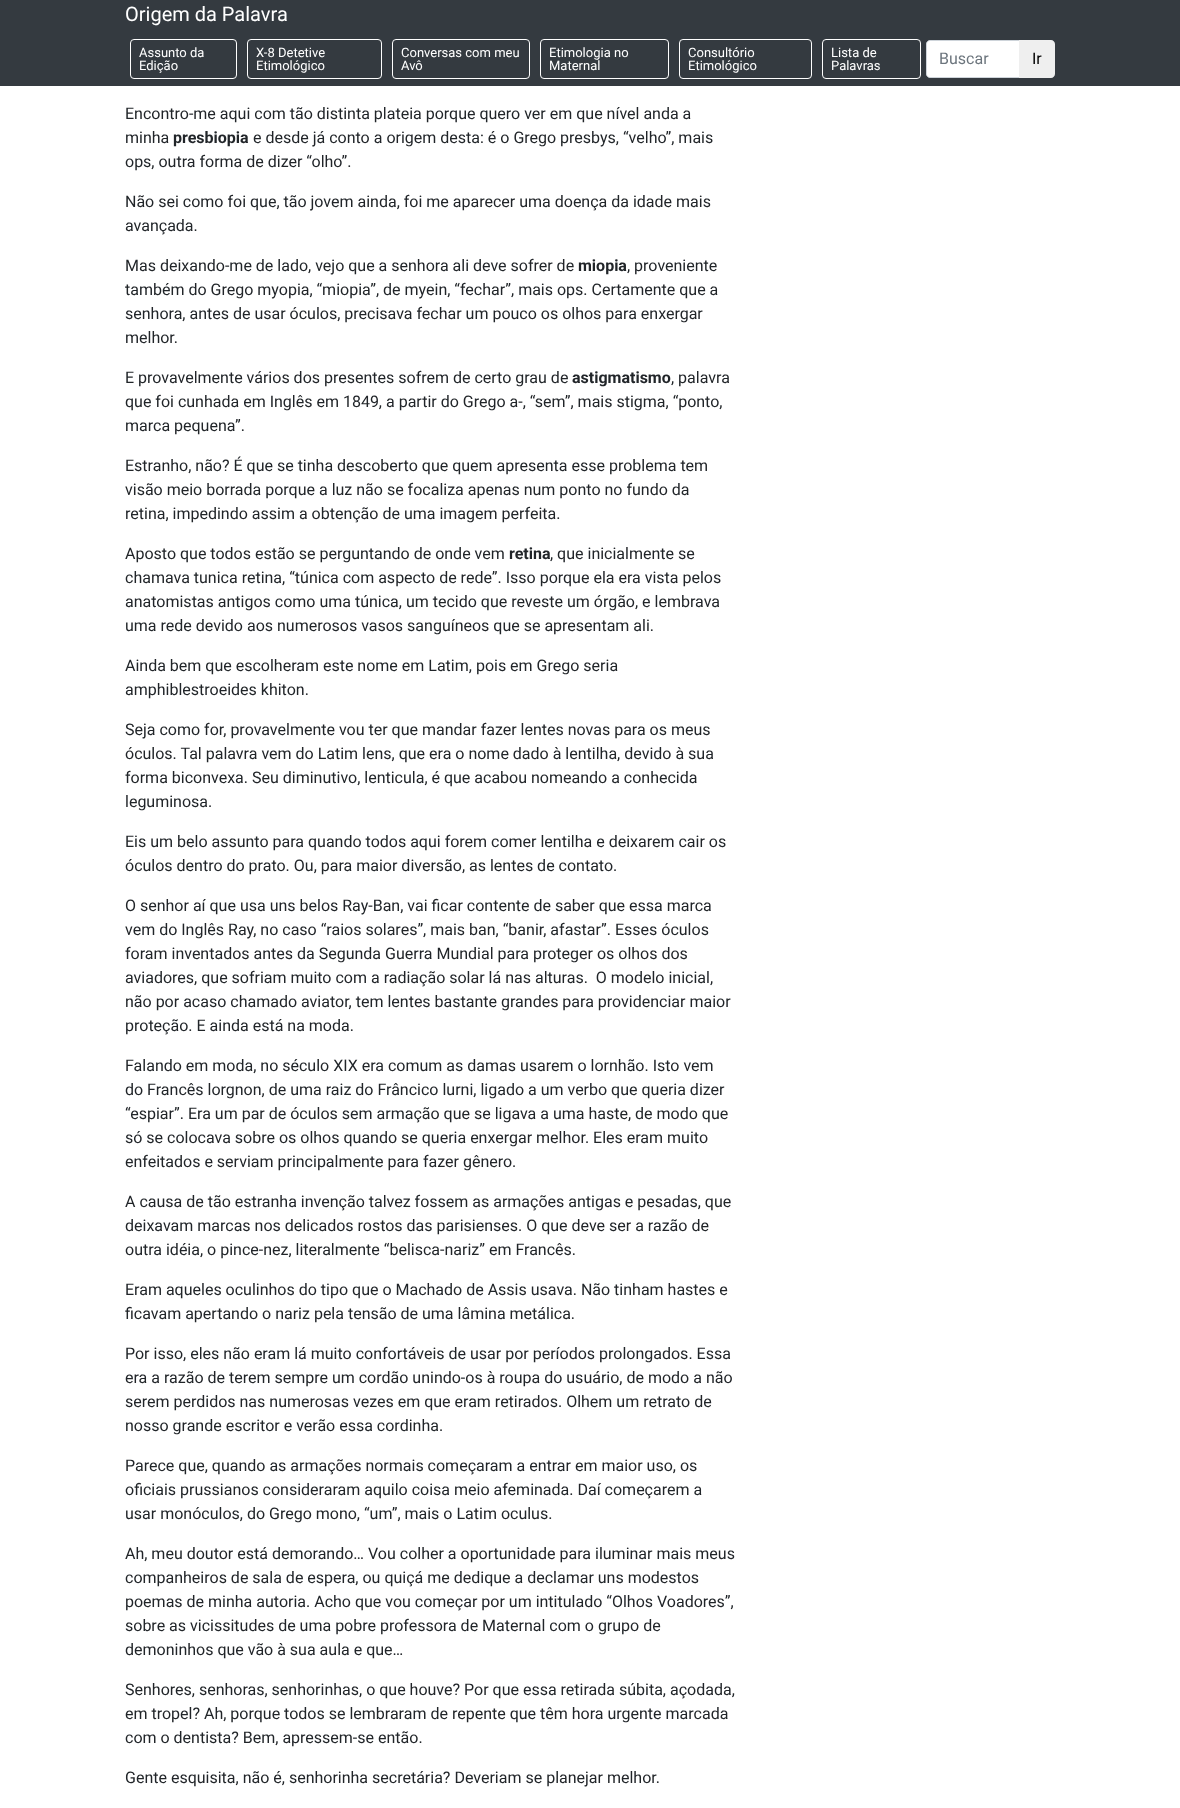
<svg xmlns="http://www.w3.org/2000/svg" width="1180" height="1808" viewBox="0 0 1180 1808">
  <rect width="100%" height="100%" fill="#ffffff"/>
  <rect x="0" y="0" width="1180" height="86" fill="#343a40"/>
  <text x="125" y="21" font-family="Roboto" font-size="20" fill="#ffffff">Origem da Palavra</text>
  <rect x="130.5" y="39.5" width="106" height="39" rx="3.5" fill="none" stroke="#ffffff"/>
  <text x="139" y="57" font-family="Roboto" font-size="13" fill="#ffffff">Assunto da</text>
  <text x="139" y="70" font-family="Roboto" font-size="13" fill="#ffffff">Edição</text>
  <rect x="247.5" y="39.5" width="134" height="39" rx="3.5" fill="none" stroke="#ffffff"/>
  <text x="256" y="57" font-family="Roboto" font-size="13" fill="#ffffff">X-8 Detetive</text>
  <text x="256" y="70" font-family="Roboto" font-size="13" fill="#ffffff">Etimológico</text>
  <rect x="392.5" y="39.5" width="137" height="39" rx="3.5" fill="none" stroke="#ffffff"/>
  <text x="401" y="57" font-family="Roboto" font-size="13" fill="#ffffff">Conversas com meu</text>
  <text x="401" y="70" font-family="Roboto" font-size="13" fill="#ffffff">Avô</text>
  <rect x="540.5" y="39.5" width="128" height="39" rx="3.5" fill="none" stroke="#ffffff"/>
  <text x="549" y="57" font-family="Roboto" font-size="13" fill="#ffffff">Etimologia no</text>
  <text x="549" y="70" font-family="Roboto" font-size="13" fill="#ffffff">Maternal</text>
  <rect x="679.5" y="39.5" width="132" height="39" rx="3.5" fill="none" stroke="#ffffff"/>
  <text x="688" y="57" font-family="Roboto" font-size="13" fill="#ffffff">Consultório</text>
  <text x="688" y="70" font-family="Roboto" font-size="13" fill="#ffffff">Etimológico</text>
  <rect x="822.5" y="39.5" width="98" height="39" rx="3.5" fill="none" stroke="#ffffff"/>
  <text x="831" y="57" font-family="Roboto" font-size="13" fill="#ffffff">Lista de</text>
  <text x="831" y="70" font-family="Roboto" font-size="13" fill="#ffffff">Palavras</text>
  <path d="M930 40.5H1019.5V77.5H930C928 77.5 926.5 76 926.5 74V44C926.5 42 928 40.5 930 40.5Z" fill="#ffffff" stroke="#ced4da"/>
  <text x="939" y="64" font-family="Roboto" font-size="16" fill="#6c757d">Buscar</text>
  <path d="M1019 40H1051C1053 40 1055 42 1055 44V74C1055 76 1053 78 1051 78H1019Z" fill="#efefef"/>
  <text x="1032" y="64" font-family="Roboto" font-size="16" fill="#000000">Ir</text>
  <text x="125" y="119" font-family="Roboto" font-size="16" fill="#212529">Encontro-me aqui com tão distinta plateia porque quero ver em que nível anda a</text>
  <text x="125" y="143" font-family="Roboto" font-size="16" fill="#212529">minha</text>
  <text x="173" y="143" font-family="Roboto" font-size="16" font-weight="bold" fill="#212529">presbiopia</text>
  <text x="253" y="143" font-family="Roboto" font-size="16" fill="#212529">e desde já conto a origem desta: é o Grego presbys, “velho”, mais</text>
  <text x="125" y="167" font-family="Roboto" font-size="16" fill="#212529">ops, outra forma de dizer “olho”.</text>
  <text x="125" y="207" font-family="Roboto" font-size="16" fill="#212529">Não sei como foi que, tão jovem ainda, foi me aparecer uma doença da idade mais</text>
  <text x="125" y="231" font-family="Roboto" font-size="16" fill="#212529">avançada.</text>
  <text x="125" y="271" font-family="Roboto" font-size="16" fill="#212529">Mas deixando-me de lado, vejo que a senhora ali deve sofrer de</text>
  <text x="578" y="271" font-family="Roboto" font-size="16" font-weight="bold" fill="#212529">miopia</text>
  <text x="627" y="271" font-family="Roboto" font-size="16" fill="#212529">, proveniente</text>
  <text x="125" y="295" font-family="Roboto" font-size="16" fill="#212529">também do Grego myopia, “miopia”, de myein, “fechar”, mais ops. Certamente que a</text>
  <text x="125" y="319" font-family="Roboto" font-size="16" fill="#212529">senhora, antes de usar óculos, precisava fechar um pouco os olhos para enxergar</text>
  <text x="125" y="343" font-family="Roboto" font-size="16" fill="#212529">melhor.</text>
  <text x="125" y="383" font-family="Roboto" font-size="16" fill="#212529">E provavelmente vários dos presentes sofrem de certo grau de</text>
  <text x="572" y="383" font-family="Roboto" font-size="16" font-weight="bold" fill="#212529">astigmatismo</text>
  <text x="671" y="383" font-family="Roboto" font-size="16" fill="#212529">, palavra</text>
  <text x="125" y="407" font-family="Roboto" font-size="16" fill="#212529">que foi cunhada em Inglês em 1849, a partir do Grego a-, “sem”, mais stigma, “ponto,</text>
  <text x="125" y="431" font-family="Roboto" font-size="16" fill="#212529">marca pequena”.</text>
  <text x="125" y="471" font-family="Roboto" font-size="16" fill="#212529">Estranho, não? É que se tinha descoberto que quem apresenta esse problema tem</text>
  <text x="125" y="495" font-family="Roboto" font-size="16" fill="#212529">visão meio borrada porque a luz não se focaliza apenas num ponto no fundo da</text>
  <text x="125" y="519" font-family="Roboto" font-size="16" fill="#212529">retina, impedindo assim a obtenção de uma imagem perfeita.</text>
  <text x="125" y="559" font-family="Roboto" font-size="16" fill="#212529">Aposto que todos estão se perguntando de onde vem</text>
  <text x="509" y="559" font-family="Roboto" font-size="16" font-weight="bold" fill="#212529">retina</text>
  <text x="550" y="559" font-family="Roboto" font-size="16" fill="#212529">, que inicialmente se</text>
  <text x="125" y="583" font-family="Roboto" font-size="16" fill="#212529">chamava tunica retina, “túnica com aspecto de rede”. Isso porque ela era vista pelos</text>
  <text x="125" y="607" font-family="Roboto" font-size="16" fill="#212529">anatomistas antigos como uma túnica, um tecido que reveste um órgão, e lembrava</text>
  <text x="125" y="631" font-family="Roboto" font-size="16" fill="#212529">uma rede devido aos numerosos vasos sanguíneos que se apresentam ali.</text>
  <text x="125" y="671" font-family="Roboto" font-size="16" fill="#212529">Ainda bem que escolheram este nome em Latim, pois em Grego seria</text>
  <text x="125" y="695" font-family="Roboto" font-size="16" fill="#212529">amphiblestroeides khiton.</text>
  <text x="125" y="735" font-family="Roboto" font-size="16" fill="#212529">Seja como for, provavelmente vou ter que mandar fazer lentes novas para os meus</text>
  <text x="125" y="759" font-family="Roboto" font-size="16" fill="#212529">óculos. Tal palavra vem do Latim lens, que era o nome dado à lentilha, devido à sua</text>
  <text x="125" y="783" font-family="Roboto" font-size="16" fill="#212529">forma biconvexa. Seu diminutivo, lenticula, é que acabou nomeando a conhecida</text>
  <text x="125" y="807" font-family="Roboto" font-size="16" fill="#212529">leguminosa.</text>
  <text x="125" y="847" font-family="Roboto" font-size="16" fill="#212529">Eis um belo assunto para quando todos aqui forem comer lentilha e deixarem cair os</text>
  <text x="125" y="871" font-family="Roboto" font-size="16" fill="#212529">óculos dentro do prato. Ou, para maior diversão, as lentes de contato.</text>
  <text x="125" y="911" font-family="Roboto" font-size="16" fill="#212529">O senhor aí que usa uns belos Ray-Ban, vai ficar contente de saber que essa marca</text>
  <text x="125" y="935" font-family="Roboto" font-size="16" fill="#212529">vem do Inglês Ray, no caso “raios solares”, mais ban, “banir, afastar”. Esses óculos</text>
  <text x="125" y="959" font-family="Roboto" font-size="16" fill="#212529">foram inventados antes da Segunda Guerra Mundial para proteger os olhos dos</text>
  <text x="125" y="983" font-family="Roboto" font-size="16" fill="#212529" xml:space="preserve">aviadores, que sofriam muito com a radiação solar lá nas alturas.  O modelo inicial,</text>
  <text x="125" y="1007" font-family="Roboto" font-size="16" fill="#212529">não por acaso chamado aviator, tem lentes bastante grandes para providenciar maior</text>
  <text x="125" y="1031" font-family="Roboto" font-size="16" fill="#212529">proteção. E ainda está na moda.</text>
  <text x="125" y="1071" font-family="Roboto" font-size="16" fill="#212529">Falando em moda, no século XIX era comum as damas usarem o lornhão. Isto vem</text>
  <text x="125" y="1095" font-family="Roboto" font-size="16" fill="#212529">do Francês lorgnon, de uma raiz do Frâncico lurni, ligado a um verbo que queria dizer</text>
  <text x="125" y="1119" font-family="Roboto" font-size="16" fill="#212529">“espiar”. Era um par de óculos sem armação que se ligava a uma haste, de modo que</text>
  <text x="125" y="1143" font-family="Roboto" font-size="16" fill="#212529">só se colocava sobre os olhos quando se queria enxergar melhor. Eles eram muito</text>
  <text x="125" y="1167" font-family="Roboto" font-size="16" fill="#212529">enfeitados e serviam principalmente para fazer gênero.</text>
  <text x="125" y="1207" font-family="Roboto" font-size="16" fill="#212529">A causa de tão estranha invenção talvez fossem as armações antigas e pesadas, que</text>
  <text x="125" y="1231" font-family="Roboto" font-size="16" fill="#212529">deixavam marcas nos delicados rostos das parisienses. O que deve ser a razão de</text>
  <text x="125" y="1255" font-family="Roboto" font-size="16" fill="#212529">outra idéia, o pince-nez, literalmente “belisca-nariz” em Francês.</text>
  <text x="125" y="1295" font-family="Roboto" font-size="16" fill="#212529">Eram aqueles oculinhos do tipo que o Machado de Assis usava. Não tinham hastes e</text>
  <text x="125" y="1319" font-family="Roboto" font-size="16" fill="#212529">ficavam apertando o nariz pela tensão de uma lâmina metálica.</text>
  <text x="125" y="1359" font-family="Roboto" font-size="16" fill="#212529">Por isso, eles não eram lá muito confortáveis de usar por períodos prolongados. Essa</text>
  <text x="125" y="1383" font-family="Roboto" font-size="16" fill="#212529">era a razão de terem sempre um cordão unindo-os à roupa do usuário, de modo a não</text>
  <text x="125" y="1407" font-family="Roboto" font-size="16" fill="#212529">serem perdidos nas numerosas vezes em que eram retirados. Olhem um retrato de</text>
  <text x="125" y="1431" font-family="Roboto" font-size="16" fill="#212529">nosso grande escritor e verão essa cordinha.</text>
  <text x="125" y="1471" font-family="Roboto" font-size="16" fill="#212529">Parece que, quando as armações normais começaram a entrar em maior uso, os</text>
  <text x="125" y="1495" font-family="Roboto" font-size="16" fill="#212529">oficiais prussianos consideraram aquilo coisa meio afeminada. Daí começarem a</text>
  <text x="125" y="1519" font-family="Roboto" font-size="16" fill="#212529">usar monóculos, do Grego mono, “um”, mais o Latim oculus.</text>
  <text x="125" y="1559" font-family="Roboto" font-size="16" fill="#212529">Ah, meu doutor está demorando… Vou colher a oportunidade para iluminar mais meus</text>
  <text x="125" y="1583" font-family="Roboto" font-size="16" fill="#212529">companheiros de sala de espera, ou quiçá me dedique a declamar uns modestos</text>
  <text x="125" y="1607" font-family="Roboto" font-size="16" fill="#212529">poemas de minha autoria. Acho que vou começar por um intitulado “Olhos Voadores”,</text>
  <text x="125" y="1631" font-family="Roboto" font-size="16" fill="#212529">sobre as vicissitudes de uma pobre professora de Maternal com o grupo de</text>
  <text x="125" y="1655" font-family="Roboto" font-size="16" fill="#212529">demoninhos que vão à sua aula e que…</text>
  <text x="125" y="1695" font-family="Roboto" font-size="16" fill="#212529">Senhores, senhoras, senhorinhas, o que houve? Por que essa retirada súbita, açodada,</text>
  <text x="125" y="1719" font-family="Roboto" font-size="16" fill="#212529">em tropel? Ah, porque todos se lembraram de repente que têm hora urgente marcada</text>
  <text x="125" y="1743" font-family="Roboto" font-size="16" fill="#212529">com o dentista? Bem, apressem-se então.</text>
  <text x="125" y="1783" font-family="Roboto" font-size="16" fill="#212529">Gente esquisita, não é, senhorinha secretária? Deveriam se planejar melhor.</text>
</svg>
